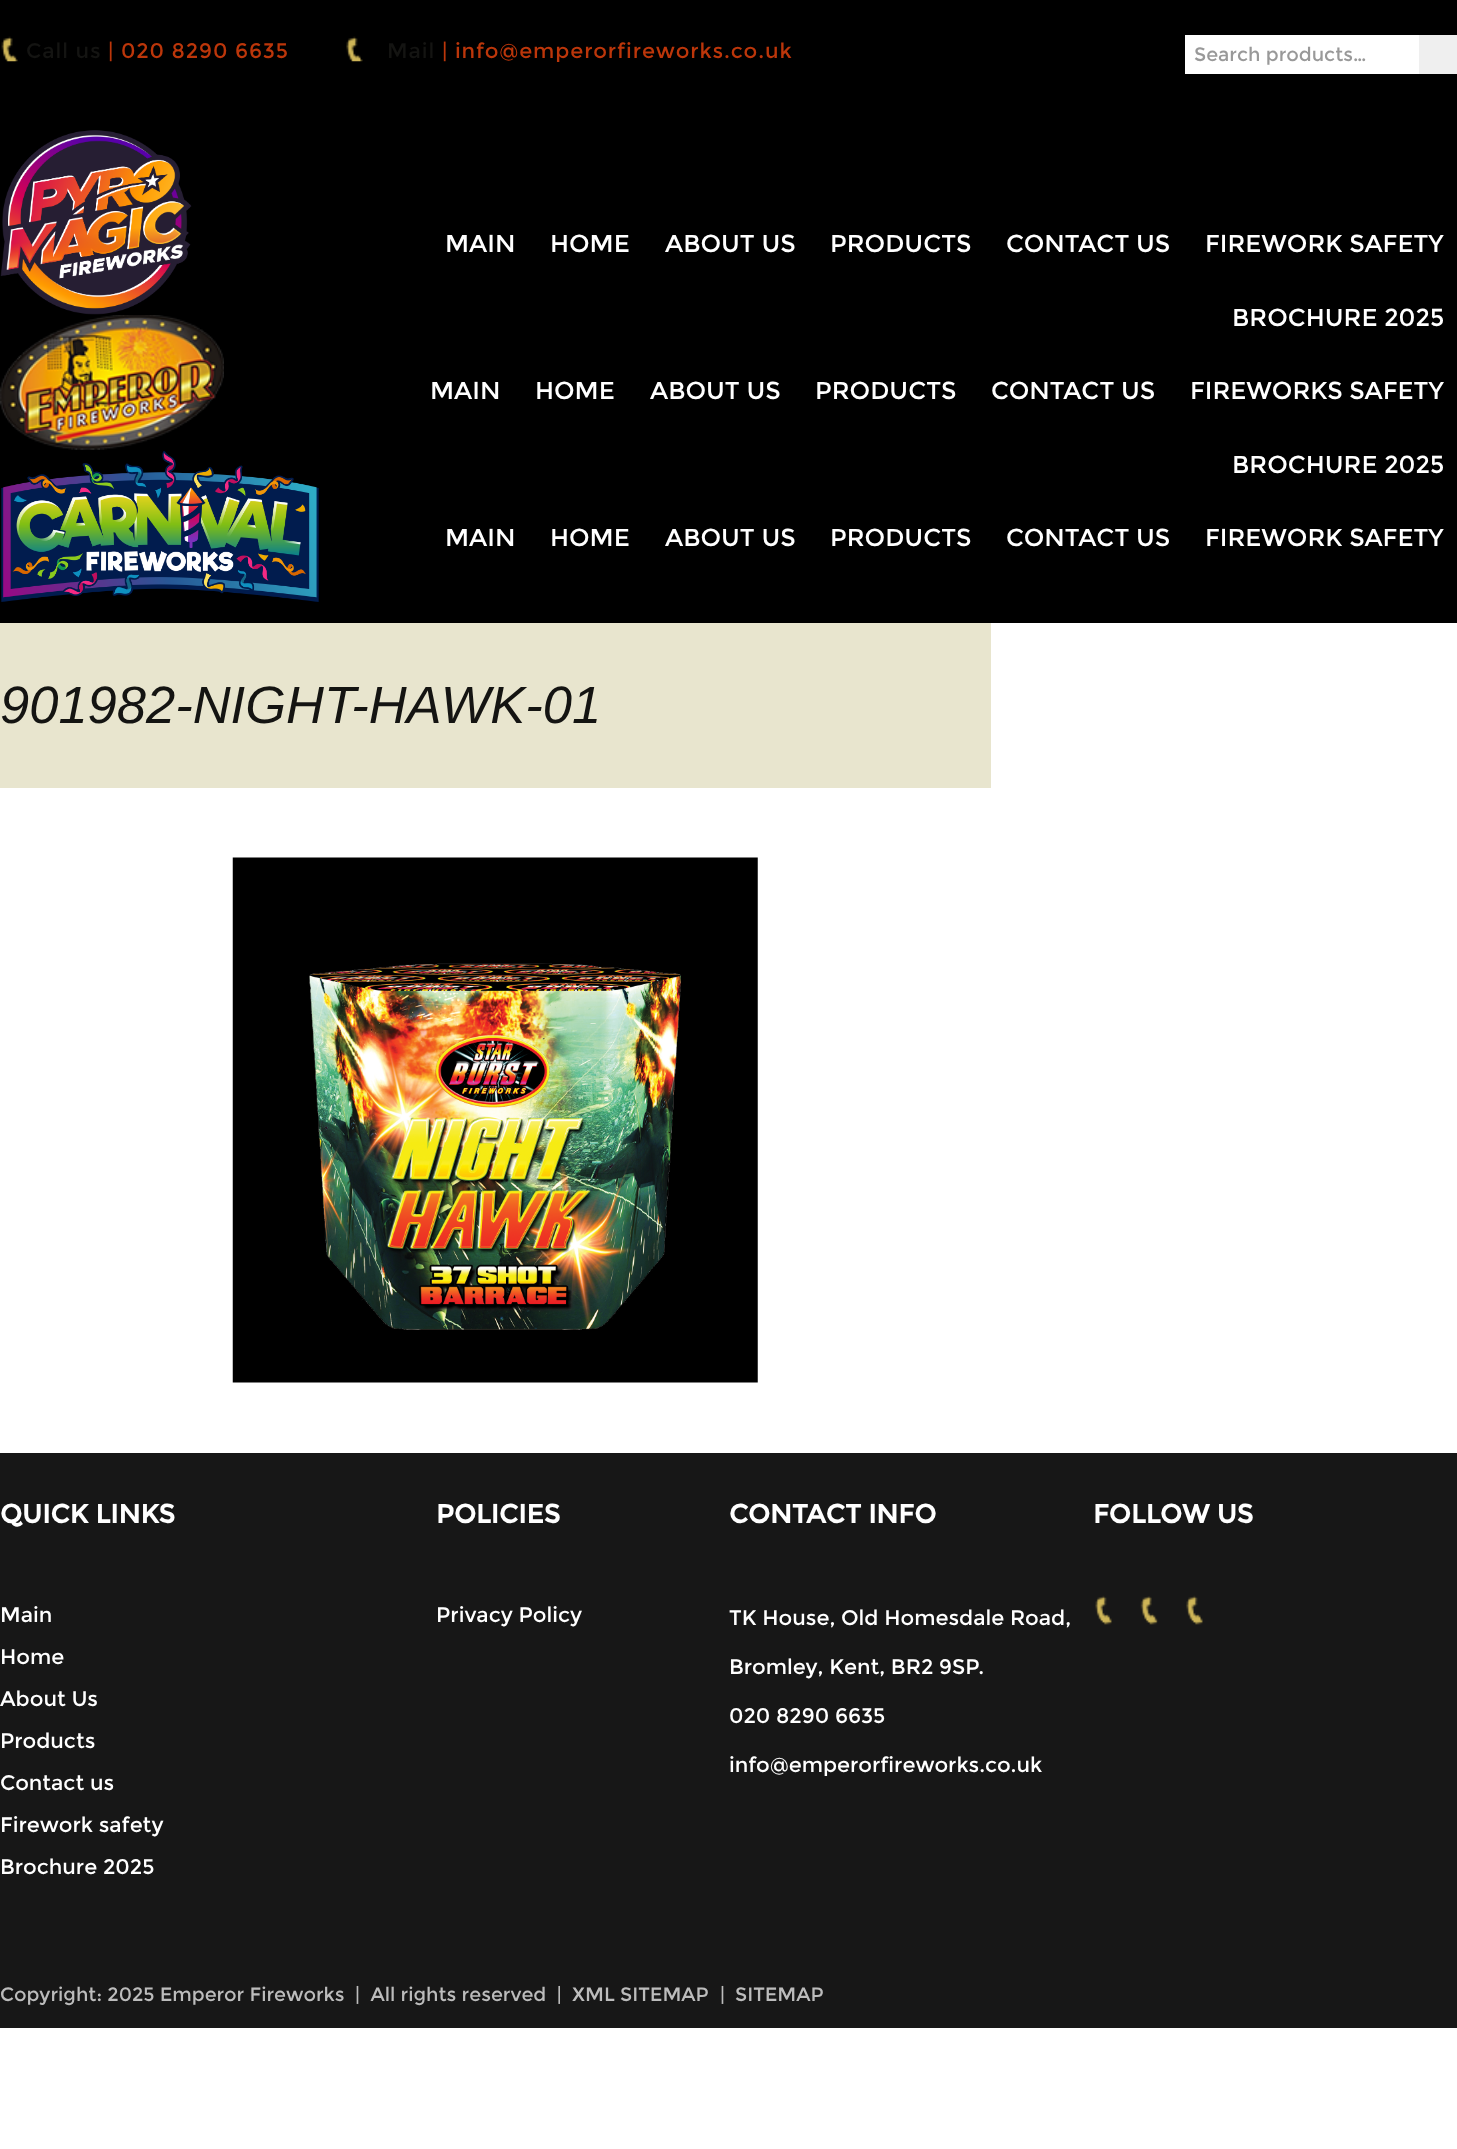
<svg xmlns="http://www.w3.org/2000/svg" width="1457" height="2149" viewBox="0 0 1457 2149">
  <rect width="100%" height="100%" fill="#ffffff"/>
  <rect x="0" y="0" width="1457" height="623" fill="#000000"/>
  <image x="1" y="36" width="17" height="26" href="img1.png"/>
  <text x="26" y="58" font-family="Montserrat" font-size="21" letter-spacing="0.9" fill="#141412">Call us</text>
  <text x="108" y="58" font-family="Montserrat" font-size="21" letter-spacing="0.9" fill="#bc360a">| 020 8290 6635</text>
  <image x="346" y="36" width="17" height="26" href="img2.png"/>
  <text x="387" y="58" font-family="Montserrat" font-size="21" letter-spacing="0.9" fill="#141412">Mail</text>
  <text x="442" y="58" font-family="Montserrat" font-size="21" letter-spacing="0.9" fill="#bc360a">| info@emperorfireworks.co.uk</text>
  <rect x="1185" y="35" width="234" height="39" fill="#ffffff"/>
  <text x="1194" y="61" font-family="Montserrat" font-size="19.25" fill="#999999">Search products…</text>
  <rect x="1419" y="35" width="38" height="39" fill="#efefef"/>
  <image x="0" y="130" width="192" height="185" href="img3.png"/>
  <image x="0" y="315" width="224" height="135" href="img4.png"/>
  <image x="1" y="451" width="318" height="151" href="img5.png"/>
  <text x="445" y="252" font-family="Montserrat" font-size="24.5" fill="#ffffff">MAIN</text>
  <text x="550" y="252" font-family="Montserrat" font-size="24.5" fill="#ffffff">HOME</text>
  <text x="665" y="252" font-family="Montserrat" font-size="24.5" fill="#ffffff">ABOUT US</text>
  <text x="830" y="252" font-family="Montserrat" font-size="24.5" fill="#ffffff">PRODUCTS</text>
  <text x="1006" y="252" font-family="Montserrat" font-size="24.5" fill="#ffffff">CONTACT US</text>
  <text x="1205" y="252" font-family="Montserrat" font-size="24.5" fill="#ffffff">FIREWORK SAFETY</text>
  <text x="1232" y="326" font-family="Montserrat" font-size="24.5" fill="#ffffff">BROCHURE 2025</text>
  <text x="430" y="399" font-family="Montserrat" font-size="24.5" fill="#ffffff">MAIN</text>
  <text x="535" y="399" font-family="Montserrat" font-size="24.5" fill="#ffffff">HOME</text>
  <text x="650" y="399" font-family="Montserrat" font-size="24.5" fill="#ffffff">ABOUT US</text>
  <text x="815" y="399" font-family="Montserrat" font-size="24.5" fill="#ffffff">PRODUCTS</text>
  <text x="991" y="399" font-family="Montserrat" font-size="24.5" fill="#ffffff">CONTACT US</text>
  <text x="1190" y="399" font-family="Montserrat" font-size="24.5" fill="#ffffff">FIREWORKS SAFETY</text>
  <text x="1232" y="473" font-family="Montserrat" font-size="24.5" fill="#ffffff">BROCHURE 2025</text>
  <text x="445" y="546" font-family="Montserrat" font-size="24.5" fill="#ffffff">MAIN</text>
  <text x="550" y="546" font-family="Montserrat" font-size="24.5" fill="#ffffff">HOME</text>
  <text x="665" y="546" font-family="Montserrat" font-size="24.5" fill="#ffffff">ABOUT US</text>
  <text x="830" y="546" font-family="Montserrat" font-size="24.5" fill="#ffffff">PRODUCTS</text>
  <text x="1006" y="546" font-family="Montserrat" font-size="24.5" fill="#ffffff">CONTACT US</text>
  <text x="1205" y="546" font-family="Montserrat" font-size="24.5" fill="#ffffff">FIREWORK SAFETY</text>
  <rect x="0" y="623" width="991" height="165" fill="#e8e5ce"/>
  <text x="0" y="723" font-family="Liberation Sans" font-size="52.5" font-style="italic" fill="#141412">901982-NIGHT-HAWK-01</text>
  <image x="232" y="857" width="526" height="526" href="img6.png"/>
  <rect x="0" y="1453" width="1457" height="575" fill="#171717"/>
  <text x="0" y="1523" font-family="Montserrat" font-size="26.25" font-weight="bold" fill="#ffffff">QUICK LINKS</text>
  <text x="0" y="1622" font-family="Montserrat" font-size="21" fill="#ffffff">Main</text>
  <text x="0" y="1664" font-family="Montserrat" font-size="21" fill="#ffffff">Home</text>
  <text x="0" y="1706" font-family="Montserrat" font-size="21" fill="#ffffff">About Us</text>
  <text x="0" y="1748" font-family="Montserrat" font-size="21" fill="#ffffff">Products</text>
  <text x="0" y="1790" font-family="Montserrat" font-size="21" fill="#ffffff">Contact us</text>
  <text x="0" y="1832" font-family="Montserrat" font-size="21" fill="#ffffff">Firework safety</text>
  <text x="0" y="1874" font-family="Montserrat" font-size="21" fill="#ffffff">Brochure 2025</text>
  <text x="436" y="1523" font-family="Montserrat" font-size="26.25" font-weight="bold" fill="#ffffff">POLICIES</text>
  <text x="436" y="1622" font-family="Montserrat" font-size="21" fill="#ffffff">Privacy Policy</text>
  <text x="729" y="1523" font-family="Montserrat" font-size="26.25" font-weight="bold" fill="#ffffff">CONTACT INFO</text>
  <text x="729" y="1625" font-family="Montserrat" font-size="21" fill="#ffffff">TK House, Old Homesdale Road,</text>
  <text x="729" y="1674" font-family="Montserrat" font-size="21" fill="#ffffff">Bromley, Kent, BR2 9SP.</text>
  <text x="729" y="1723" font-family="Montserrat" font-size="21" fill="#ffffff">020 8290 6635</text>
  <text x="729" y="1772" font-family="Montserrat" font-size="21" fill="#ffffff">info@emperorfireworks.co.uk</text>
  <text x="1093" y="1523" font-family="Montserrat" font-size="26.25" font-weight="bold" fill="#ffffff">FOLLOW US</text>
  <image x="1095" y="1595" width="17" height="30" href="img7.png"/>
  <image x="1140" y="1596" width="18" height="29" href="img8.png"/>
  <image x="1186" y="1595" width="17" height="30" href="img9.png"/>
  <text x="0" y="2001" font-family="Montserrat" font-size="19.25" fill="#bcbcbc">Copyright: 2025 Emperor Fireworks</text>
  <text x="355" y="2001" font-family="Montserrat" font-size="19.25" fill="#bcbcbc" xml:space="preserve">|  All rights reserved  |</text>
  <text x="572" y="2001" font-family="Montserrat" font-size="19.25" fill="#bcbcbc">XML SITEMAP</text>
  <text x="720" y="2001" font-family="Montserrat" font-size="19.25" fill="#bcbcbc">|</text>
  <text x="735" y="2001" font-family="Montserrat" font-size="19.25" fill="#bcbcbc">SITEMAP</text>
</svg>
